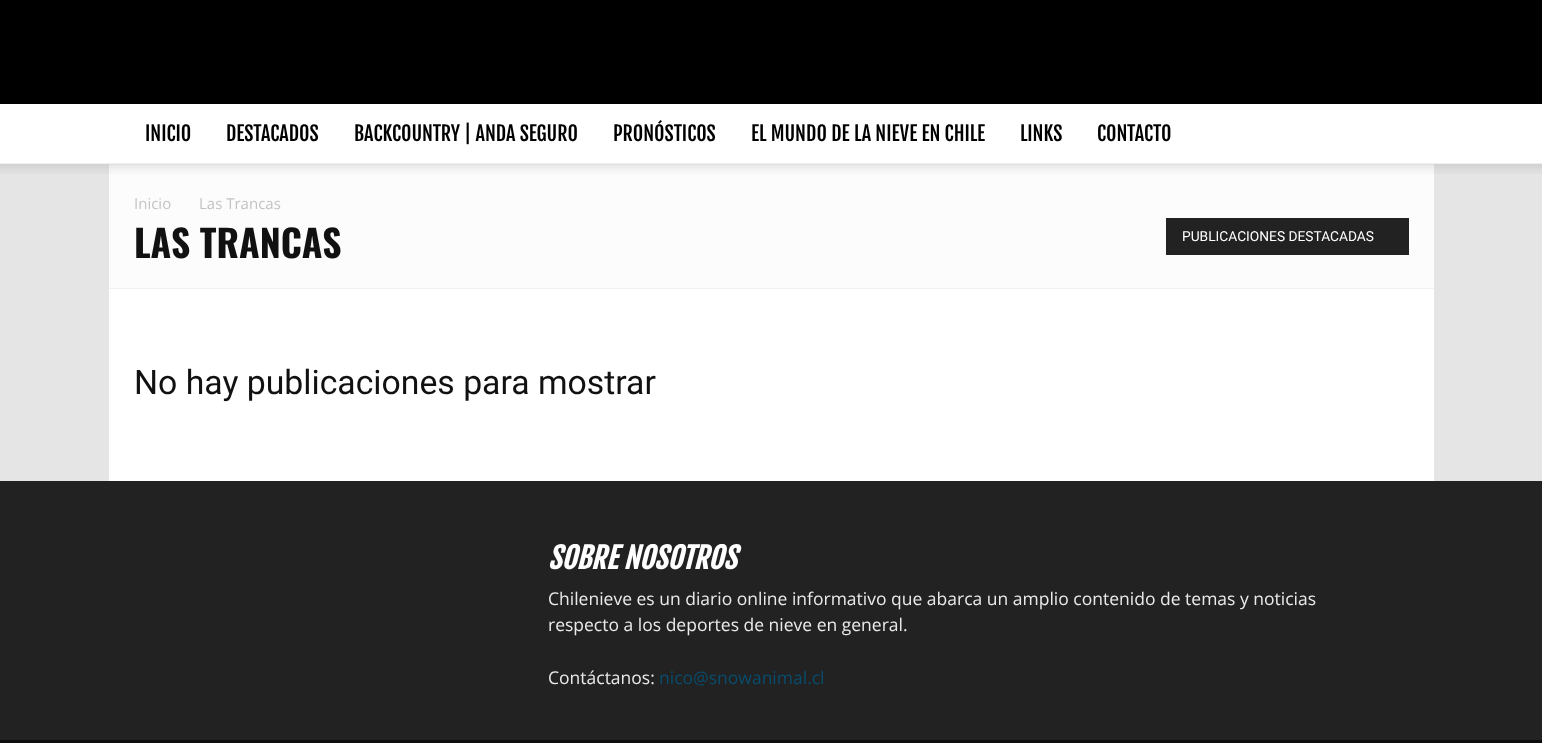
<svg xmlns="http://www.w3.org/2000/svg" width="1542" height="743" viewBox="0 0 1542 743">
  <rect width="100%" height="100%" fill="#e5e5e5"/>
  <rect x="0" y="0" width="1542" height="104" fill="#000000"/>
  <rect x="0" y="104" width="1542" height="60" fill="#ffffff"/>
  <text x="145" y="141" font-family="Fjalla One" font-size="20" fill="#000000">INICIO</text>
  <text x="226" y="141" font-family="Fjalla One" font-size="20" fill="#000000">DESTACADOS</text>
  <text x="354" y="141" font-family="Fjalla One" font-size="20" fill="#000000">BACKCOUNTRY | ANDA SEGURO</text>
  <text x="613" y="141" font-family="Fjalla One" font-size="20" fill="#000000">PRONÓSTICOS</text>
  <text x="751" y="141" font-family="Fjalla One" font-size="20" fill="#000000">EL MUNDO DE LA NIEVE EN CHILE</text>
  <text x="1020" y="141" font-family="Fjalla One" font-size="20" fill="#000000">LINKS</text>
  <text x="1097" y="141" font-family="Fjalla One" font-size="20" fill="#000000">CONTACTO</text>
  <rect x="109" y="165" width="1325" height="123" fill="#fcfcfc"/>
  <rect x="109" y="164" width="1325" height="1" fill="#f2f2f2"/>
  <image x="0" y="163" width="1542" height="11" href="img1.png"/>
  <rect x="109" y="288" width="1325" height="1" fill="#f2f2f2"/>
  <text x="134" y="209" font-family="Open Sans" font-size="15" fill="#c3c3c3">Inicio</text>
  <text x="199" y="209" font-family="Open Sans" font-size="15" fill="#c3c3c3">Las Trancas</text>
  <text x="134" y="258" font-family="Oswald" font-size="37.5" font-weight="bold" fill="#111111">LAS TRANCAS</text>
  <rect x="1166" y="218" width="243" height="37" fill="#222222"/>
  <text x="1182" y="241" font-family="Roboto" font-size="13.75" fill="#ffffff">PUBLICACIONES DESTACADAS</text>
  <rect x="109" y="289" width="1325" height="192" fill="#ffffff"/>
  <text x="134" y="394" font-family="Roboto" font-size="33.75" fill="#111111">No hay publicaciones para mostrar</text>
  <rect x="0" y="481" width="1542" height="259" fill="#222222"/>
  <text x="548" y="569" font-family="Fjalla One" font-size="28.75" font-weight="bold" font-style="italic" fill="#ffffff">SOBRE NOSOTROS</text>
  <text x="548" y="605" font-family="Open Sans" font-size="17.5" fill="#eaeaea">Chilenieve es un diario online informativo que abarca un amplio contenido de temas y noticias</text>
  <text x="548" y="631" font-family="Open Sans" font-size="17.5" fill="#eaeaea">respecto a los deportes de nieve en general.</text>
  <text x="548" y="684" font-family="Open Sans" font-size="17.5" fill="#eaeaea">Contáctanos:</text>
  <text x="659" y="684" font-family="Open Sans" font-size="17.5" fill="#084d6e">nico@snowanimal.cl</text>
  <rect x="0" y="740" width="1542" height="3" fill="#0d0d0d"/>
</svg>
